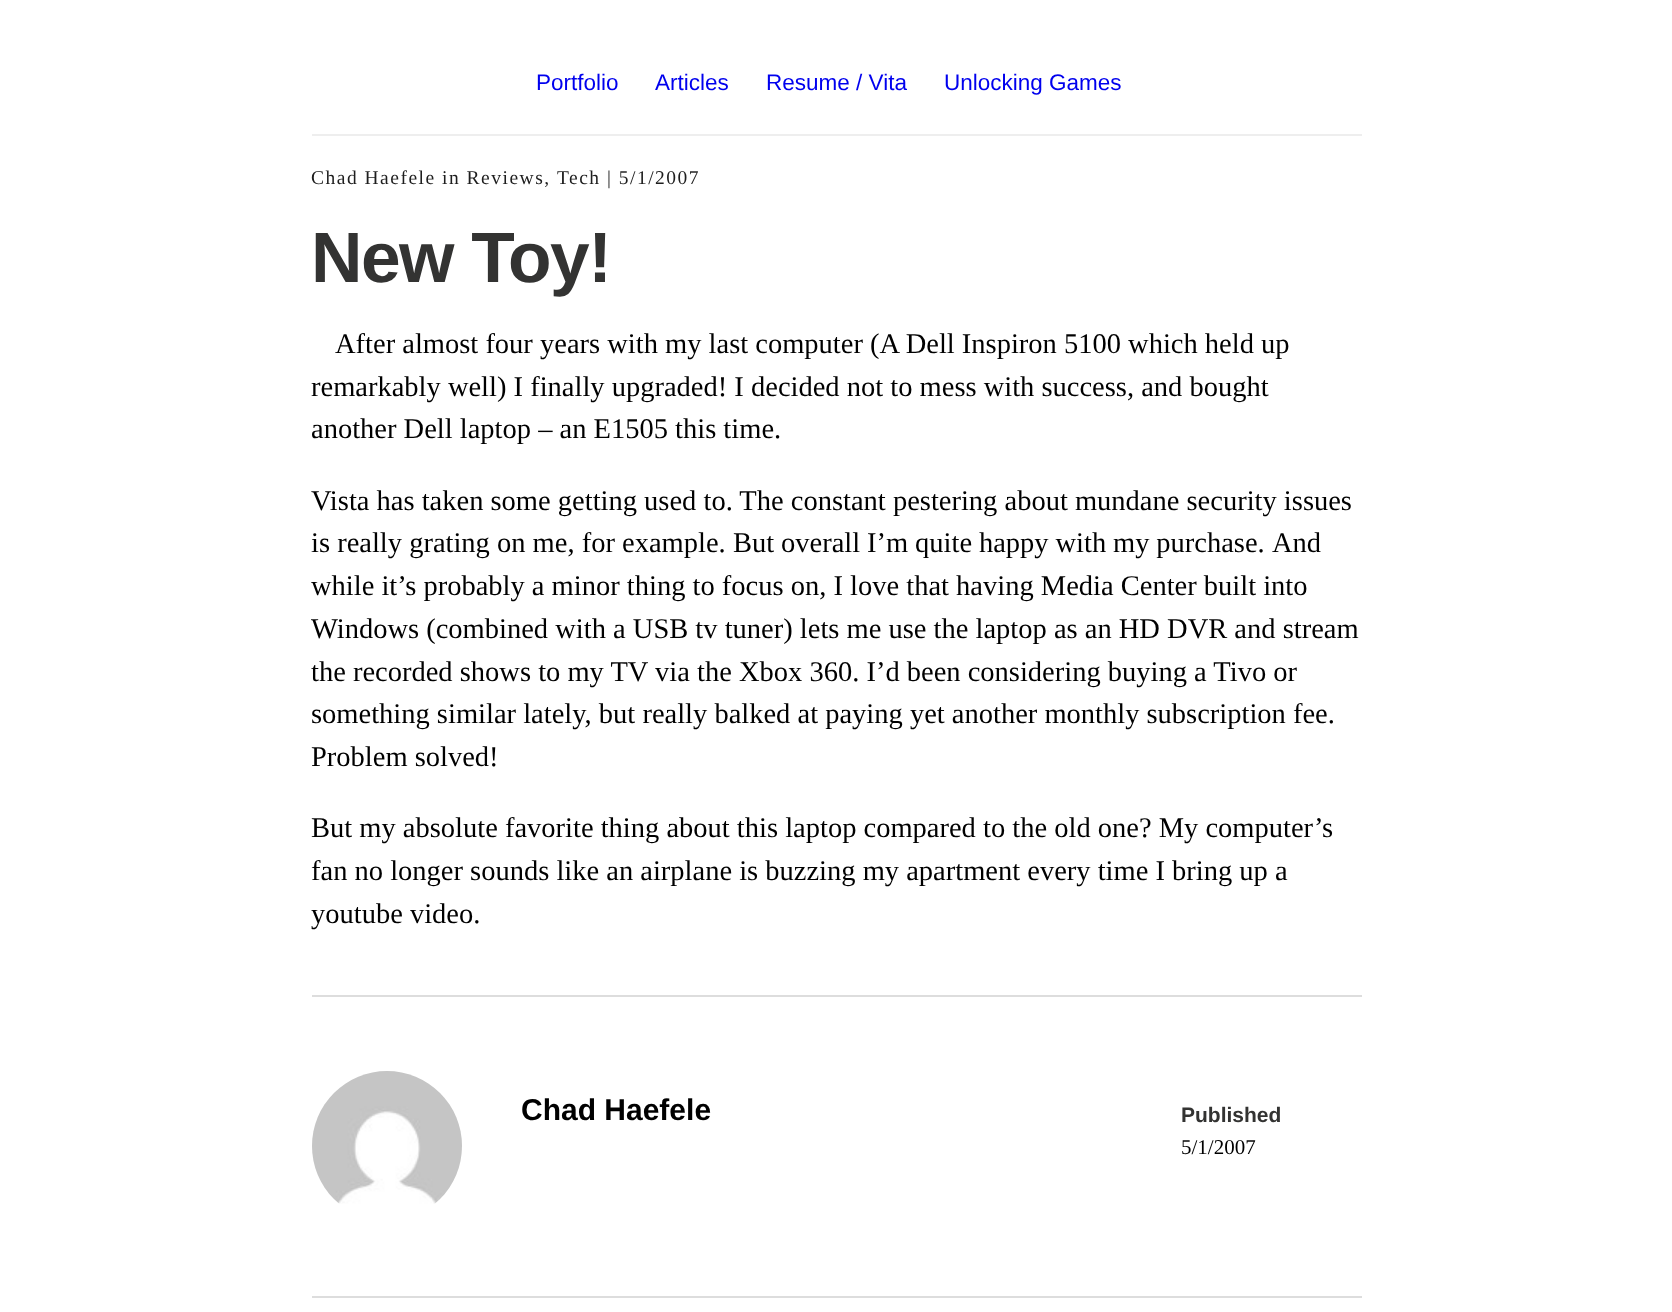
<svg xmlns="http://www.w3.org/2000/svg" width="1672" height="1312" viewBox="0 0 1672 1312">
  <rect width="100%" height="100%" fill="#ffffff"/>
  <rect x="312" y="134" width="1050" height="2" fill="#eeeeee"/>
  <text x="536" y="90" font-family="Liberation Sans" font-size="22.5" fill="#0000ee">Portfolio</text>
  <text x="655" y="90" font-family="Liberation Sans" font-size="22.5" fill="#0000ee">Articles</text>
  <text x="766" y="90" font-family="Liberation Sans" font-size="22.5" fill="#0000ee">Resume / Vita</text>
  <text x="944" y="90" font-family="Liberation Sans" font-size="22.5" fill="#0000ee">Unlocking Games</text>
  <text x="311" y="184" font-family="Liberation Serif" font-size="19.5" letter-spacing="1.5" fill="#1e1e1e">Chad Haefele in Reviews,</text>
  <text x="557" y="184" font-family="Liberation Serif" font-size="19.5" letter-spacing="1.5" fill="#1e1e1e">Tech | 5/1/2007</text>
  <text x="311" y="282" font-family="Liberation Sans" font-size="71.25" font-weight="bold" letter-spacing="-1.5" fill="#333332">New Toy!</text>
  <text x="335" y="353" font-family="Liberation Serif" font-size="28.5" fill="#000000">After almost four years with my last computer (A Dell Inspiron 5100 which held up</text>
  <text x="311" y="396" font-family="Liberation Serif" font-size="28.5" fill="#000000">remarkably well) I finally upgraded! I decided not to mess with success, and bought</text>
  <text x="311" y="438" font-family="Liberation Serif" font-size="28.5" fill="#000000">another Dell laptop – an E1505 this time.</text>
  <text x="311" y="510" font-family="Liberation Serif" font-size="28.5" fill="#000000">Vista has taken some getting used to. The constant pestering about mundane security issues</text>
  <text x="311" y="552" font-family="Liberation Serif" font-size="28.5" fill="#000000">is really grating on me, for example.</text>
  <text x="733" y="552" word-spacing="-0.25" font-family="Liberation Serif" font-size="28.5" fill="#000000">But overall I’m quite happy with my purchase.</text>
  <text x="1272" y="552" font-family="Liberation Serif" font-size="28.5" fill="#000000">And</text>
  <text x="311" y="595" font-family="Liberation Serif" font-size="28.5" fill="#000000">while it’s probably a minor thing to focus on, I love that having Media Center built into</text>
  <text x="311" y="638" font-family="Liberation Serif" font-size="28.5" fill="#000000">Windows (combined with a USB tv tuner) lets me use the laptop as an HD DVR and stream</text>
  <text x="311" y="681" font-family="Liberation Serif" font-size="28.5" fill="#000000">the recorded shows to my TV via the Xbox 360. I’d been considering buying a Tivo or</text>
  <text x="311" y="723" font-family="Liberation Serif" font-size="28.5" fill="#000000">something similar lately, but really balked at paying yet another monthly subscription fee.</text>
  <text x="311" y="766" font-family="Liberation Serif" font-size="28.5" fill="#000000">Problem solved!</text>
  <text x="311" y="837" font-family="Liberation Serif" font-size="28.5" fill="#000000">But my absolute favorite thing about this laptop compared to the old one? My computer’s</text>
  <text x="311" y="880" font-family="Liberation Serif" font-size="28.5" fill="#000000">fan no longer sounds like an airplane is buzzing my apartment every time I bring up a</text>
  <text x="311" y="923" font-family="Liberation Serif" font-size="28.5" fill="#000000">youtube video.</text>
  <rect x="312" y="995" width="1050" height="2" fill="#dddddd"/>
  <rect x="312" y="1296" width="1050" height="2" fill="#dddddd"/>
  <image x="312" y="1071" width="150" height="133" href="img1.png"/>
  <text x="521" y="1120" font-family="Liberation Sans" font-size="30" font-weight="bold" fill="#000000">Chad Haefele</text>
  <text x="1181" y="1122" font-family="Liberation Sans" font-size="21" font-weight="bold" fill="#333332">Published</text>
  <text x="1181" y="1154" font-family="Liberation Serif" font-size="21" fill="#000000">5/1/2007</text>
</svg>
